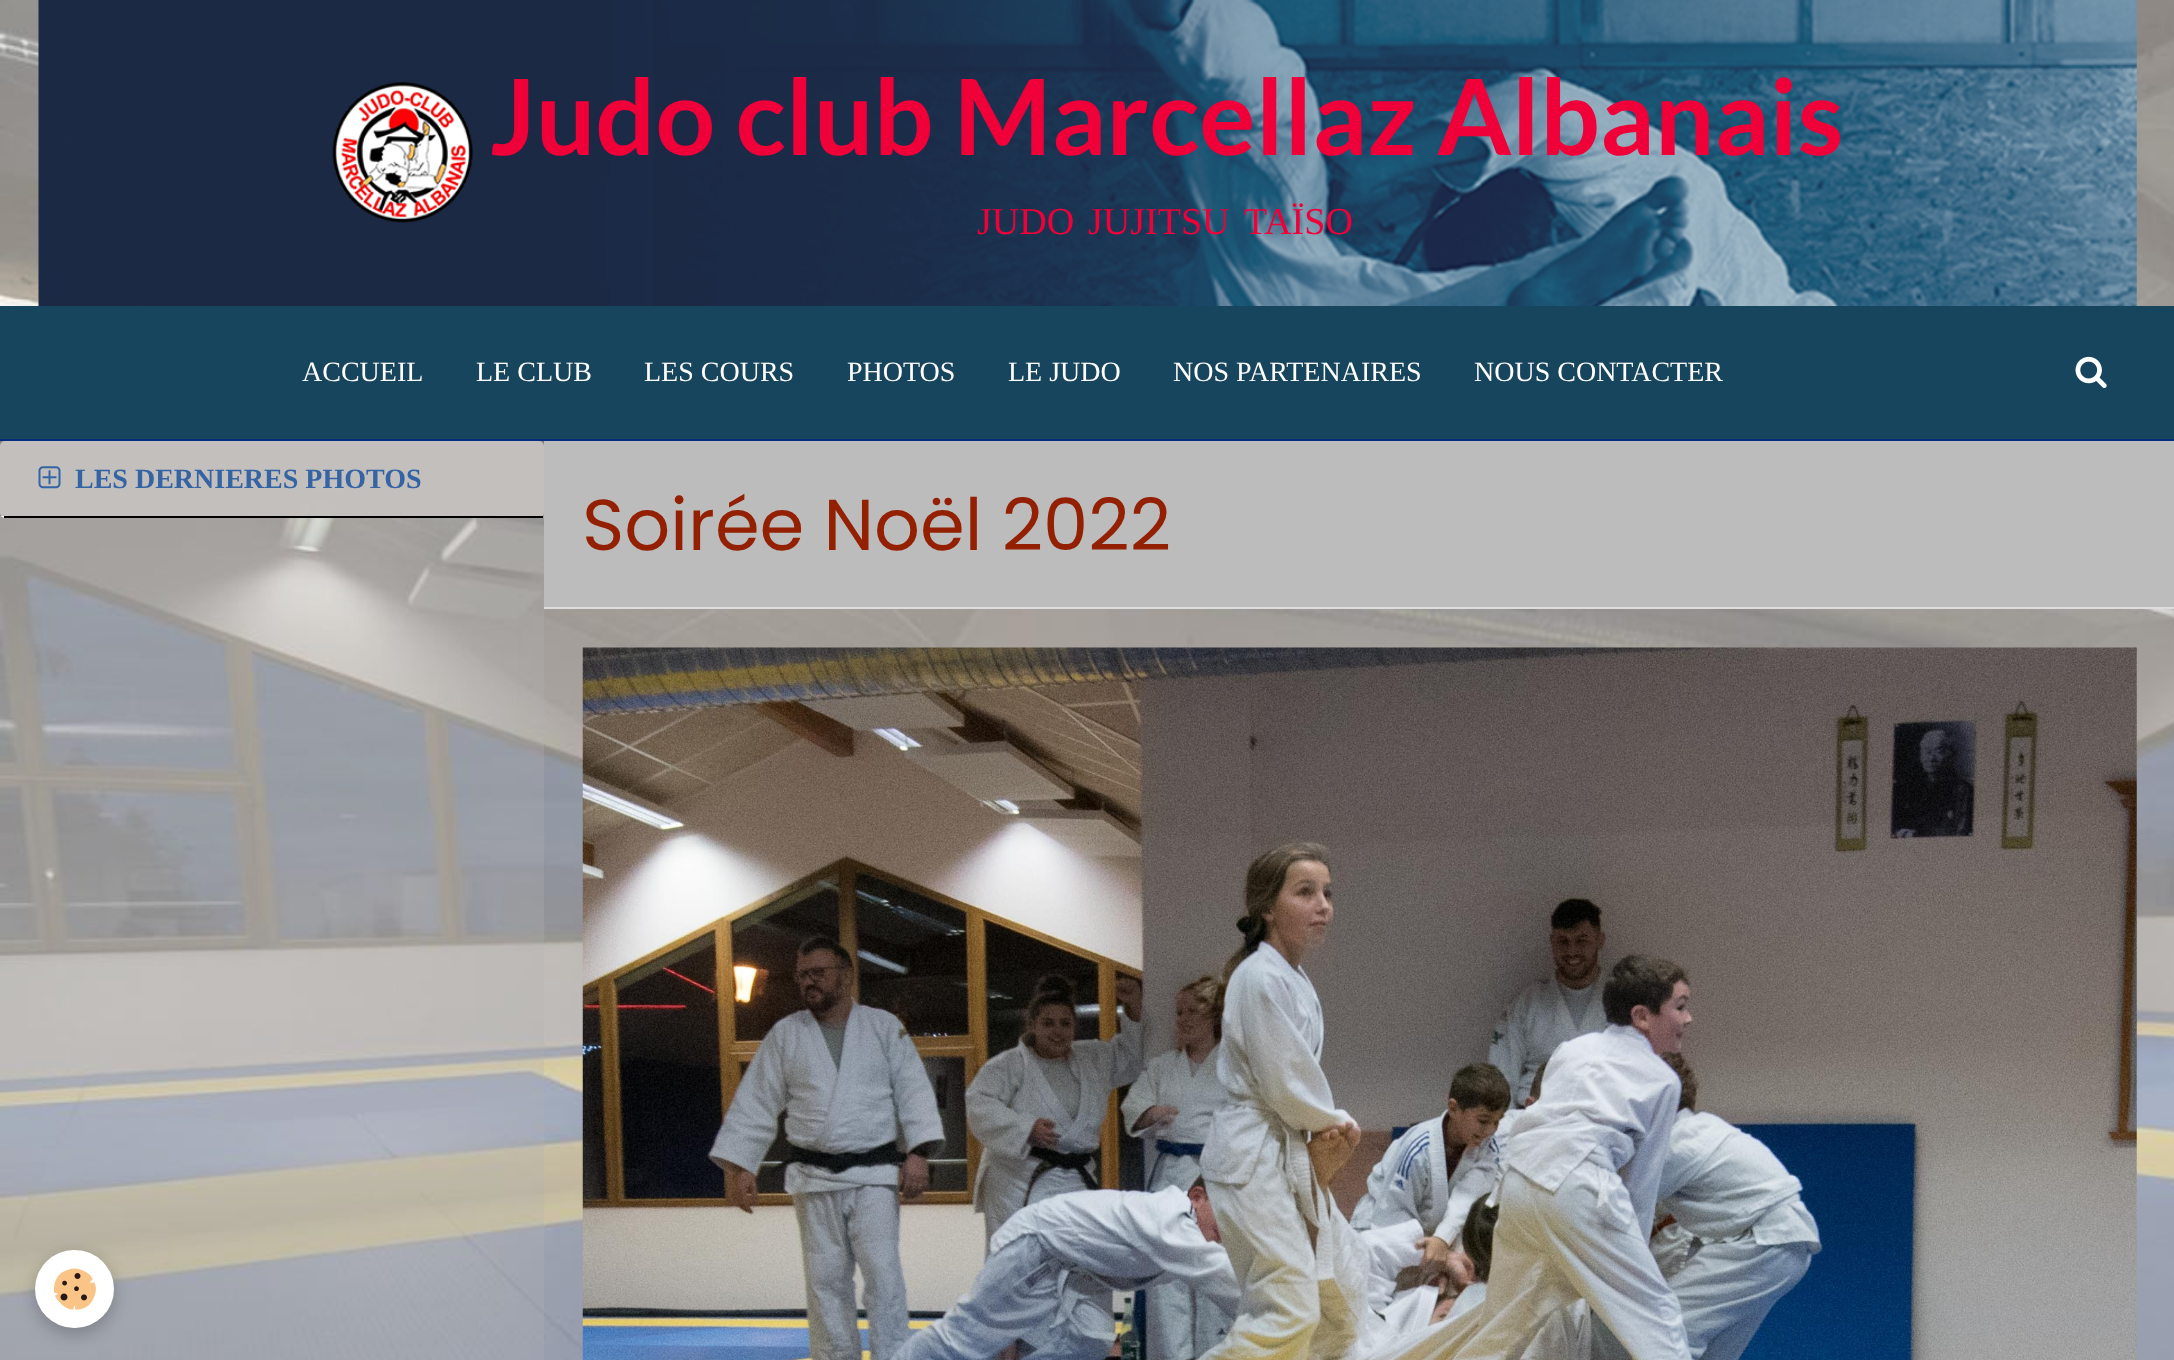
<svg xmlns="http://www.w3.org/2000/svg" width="2174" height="1360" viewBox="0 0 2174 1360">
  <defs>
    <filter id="blur1" x="-50%" y="-200%" width="200%" height="500%"><feGaussianBlur stdDeviation="9"/></filter>
  </defs>
  <rect width="100%" height="100%" fill="#ffffff"/>
  <image x="0" y="0" width="2174" height="1360" href="img1.png"/>
  <image x="38" y="0" width="2099" height="306" href="img2.png"/>
  <image x="332" y="82" width="141" height="141" href="img3.png"/>
  <text x="490" y="155" font-family="Lato" font-size="105" font-weight="bold" fill="#f00039">Judo club Marcellaz Albanais</text>
  <text x="977" y="234" font-family="Liberation Serif" font-size="38" fill="#f00039">JUDO</text>
  <text x="1088" y="234" font-family="Liberation Serif" font-size="38" fill="#f00039">JUJITSU</text>
  <text x="1244" y="234" font-family="Liberation Serif" font-size="38" fill="#f00039">TAÏSO</text>
  <rect x="0" y="306" width="2174" height="133" fill="#17455e"/>
  <rect x="0" y="439" width="2174" height="2" fill="#032c7e"/>
  <text x="302" y="381" font-family="Liberation Serif" font-size="28" fill="#ffffff">ACCUEIL</text>
  <text x="476" y="381" font-family="Liberation Serif" font-size="28" fill="#ffffff">LE CLUB</text>
  <text x="644" y="381" font-family="Liberation Serif" font-size="28" fill="#ffffff">LES COURS</text>
  <text x="847" y="381" font-family="Liberation Serif" font-size="28" fill="#ffffff">PHOTOS</text>
  <text x="1008" y="381" font-family="Liberation Serif" font-size="28" fill="#ffffff">LE JUDO</text>
  <text x="1173" y="381" font-family="Liberation Serif" font-size="28" fill="#ffffff">NOS PARTENAIRES</text>
  <text x="1474" y="381" font-family="Liberation Serif" font-size="28" fill="#ffffff">NOUS CONTACTER</text>
  <image x="2075" y="356" width="32" height="32" href="img4.png"/>
  <rect x="0" y="441" width="544" height="919" fill="#b2b0b0" fill-opacity="0.27"/>
  <rect x="0" y="441" width="544" height="77" rx="5" fill="#ffffff" fill-opacity="0.99"/>
  <rect x="4" y="516" width="539" height="2" fill="#000000"/>
  <rect x="0" y="441" width="544" height="75" fill="#5b4f49" fill-opacity="0.2"/>
  <rect x="0" y="441" width="544" height="75" fill="#5b4f49" fill-opacity="0.2"/>
  <image x="38" y="466" width="23" height="23" href="img5.png"/>
  <text x="75" y="488" font-family="Liberation Serif" font-size="28" font-weight="bold" fill="#3464a4">LES DERNIERES PHOTOS</text>
  <rect x="544" y="441" width="1630" height="166" fill="#bcbcbc"/>
  <rect x="544" y="607" width="1630" height="2" fill="#dddddd"/>
  <text x="582" y="550" font-family="Poppins" font-size="72" fill="#932000">Soirée Noël 2022</text>
  <image x="582" y="647" width="1555" height="713" href="img6.png"/>
  <rect x="35" y="1255" width="79" height="79" rx="39.5" fill="#000000" fill-opacity="0.24" filter="url(#blur1)"/>
  <rect x="35" y="1250" width="79" height="78" rx="39" fill="#ffffff"/>
  <image x="53" y="1268" width="43" height="42" href="img7.png"/>
</svg>
